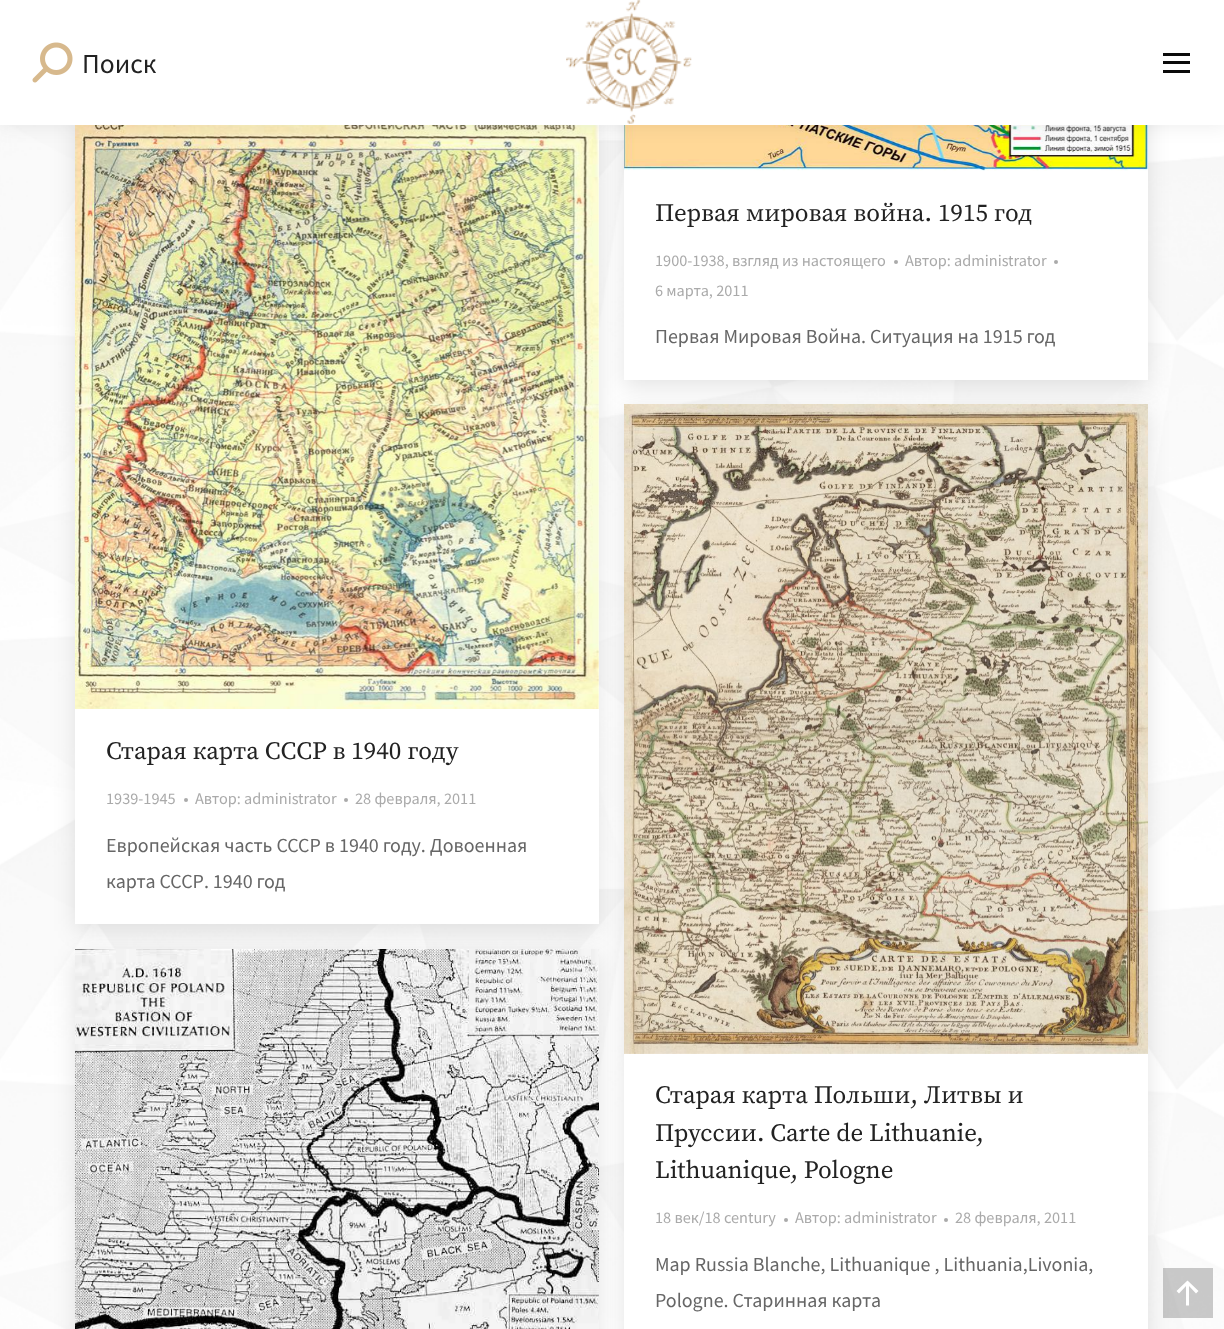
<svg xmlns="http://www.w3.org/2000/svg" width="1224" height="1329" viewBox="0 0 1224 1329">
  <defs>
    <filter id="blur1" x="-50%" y="-200%" width="200%" height="500%"><feGaussianBlur stdDeviation="11"/></filter>
    <filter id="blur2" x="-50%" y="-200%" width="200%" height="500%"><feGaussianBlur stdDeviation="9.5"/></filter>
  </defs>
  <rect width="100%" height="100%" fill="#ffffff"/>
  <image x="0" y="125" width="1224" height="1204" href="img1.png"/>
  <rect x="624" y="-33" width="524" height="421" fill="#000000" fill-opacity="0.1" filter="url(#blur1)"/>
  <rect x="624" y="125" width="524" height="255" fill="#ffffff"/>
  <image x="624" y="125" width="524" height="46" href="img4.png"/>
  <rect x="75" y="121" width="524" height="810" fill="#000000" fill-opacity="0.1" filter="url(#blur1)"/>
  <rect x="75" y="125" width="524" height="799" fill="#ffffff"/>
  <image x="75" y="125" width="524" height="584" href="img5.png"/>
  <rect x="-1" y="-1" width="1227" height="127" fill="#000000" fill-opacity="0.07" filter="url(#blur2)"/>
  <rect x="0" y="0" width="1224" height="125" fill="#ffffff"/>
  <image x="32" y="42" width="41" height="41" href="img2.png"/>
  <text x="82" y="73" font-family="Source Sans Pro" font-size="27.5" fill="#222222">Поиск</text>
  <image x="566" y="0" width="126" height="124" href="img3.png"/>
  <rect x="1163" y="53" width="27" height="3" fill="#0a0a0a"/>
  <rect x="1163" y="61" width="27" height="3" fill="#0a0a0a"/>
  <rect x="1163" y="70" width="27" height="3" fill="#0a0a0a"/>
  <text x="655" y="221" font-family="Source Serif Pro" font-size="25" fill="#222222">Первая мировая война. 1915 год</text>
  <text x="655" y="266" font-family="Source Sans Pro" font-size="16.25" fill="#aaaaaa">1900-1938, взгляд из настоящего</text>
  <circle cx="896" cy="262" r="2" fill="#aaaaaa"/>
  <text x="905" y="266" font-family="Source Sans Pro" font-size="16.25" fill="#aaaaaa">Автор: administrator</text>
  <circle cx="1056" cy="262" r="2" fill="#aaaaaa"/>
  <text x="655" y="296" font-family="Source Sans Pro" font-size="16.25" fill="#aaaaaa">6 марта, 2011</text>
  <text x="655" y="343" font-family="Source Sans Pro" font-size="20" fill="#666666">Первая Мировая Война. Ситуация на 1915 год</text>
  <text x="106" y="759" font-family="Source Serif Pro" font-size="25" fill="#222222">Старая карта СССР в 1940 году</text>
  <text x="106" y="804" font-family="Source Sans Pro" font-size="16.25" fill="#aaaaaa">1939-1945</text>
  <circle cx="186" cy="800" r="2" fill="#aaaaaa"/>
  <text x="195" y="804" font-family="Source Sans Pro" font-size="16.25" fill="#aaaaaa">Автор: administrator</text>
  <circle cx="346" cy="800" r="2" fill="#aaaaaa"/>
  <text x="355" y="804" font-family="Source Sans Pro" font-size="16.25" fill="#aaaaaa">28 февраля, 2011</text>
  <text x="106" y="852" font-family="Source Sans Pro" font-size="20" fill="#666666">Европейская часть СССР в 1940 году. Довоенная</text>
  <text x="106" y="888" font-family="Source Sans Pro" font-size="20" fill="#666666">карта СССР. 1940 год</text>
  <rect x="624" y="411" width="524" height="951" fill="#000000" fill-opacity="0.1" filter="url(#blur1)"/>
  <rect x="624" y="1053" width="524" height="276" fill="#ffffff"/>
  <image x="624" y="404" width="524" height="650" href="img7.png"/>
  <rect x="75" y="956" width="524" height="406" fill="#000000" fill-opacity="0.1" filter="url(#blur1)"/>
  <image x="75" y="949" width="524" height="380" href="img6.png"/>
  <text x="655" y="1103" font-family="Source Serif Pro" font-size="25" fill="#222222">Старая карта Польши, Литвы и</text>
  <text x="655" y="1141" font-family="Source Serif Pro" font-size="25" fill="#222222">Пруссии. Carte de Lithuanie,</text>
  <text x="655" y="1178" font-family="Source Serif Pro" font-size="25" fill="#222222">Lithuanique, Polоgne</text>
  <text x="655" y="1223" font-family="Source Sans Pro" font-size="16.25" fill="#aaaaaa">18 век/18 century</text>
  <circle cx="786" cy="1220" r="2" fill="#aaaaaa"/>
  <text x="795" y="1223" font-family="Source Sans Pro" font-size="16.25" fill="#aaaaaa">Автор: administrator</text>
  <circle cx="946" cy="1220" r="2" fill="#aaaaaa"/>
  <text x="955" y="1223" font-family="Source Sans Pro" font-size="16.25" fill="#aaaaaa">28 февраля, 2011</text>
  <text x="655" y="1271" font-family="Source Sans Pro" font-size="20" fill="#666666">Map Russia Blanche, Lithuanique , Lithuania,Livonia,</text>
  <text x="655" y="1307" font-family="Source Sans Pro" font-size="20" fill="#666666">Pologne. Старинная карта</text>
  <rect x="1163" y="1268" width="50" height="50" fill="#000000" fill-opacity="0.2"/>
  <path d="M1176.5 1291L1179 1293.5L1186 1286V1305.5H1189V1286L1196 1293.5L1198.5 1291L1187.5 1280.5Z" fill="#ffffff"/>
</svg>
